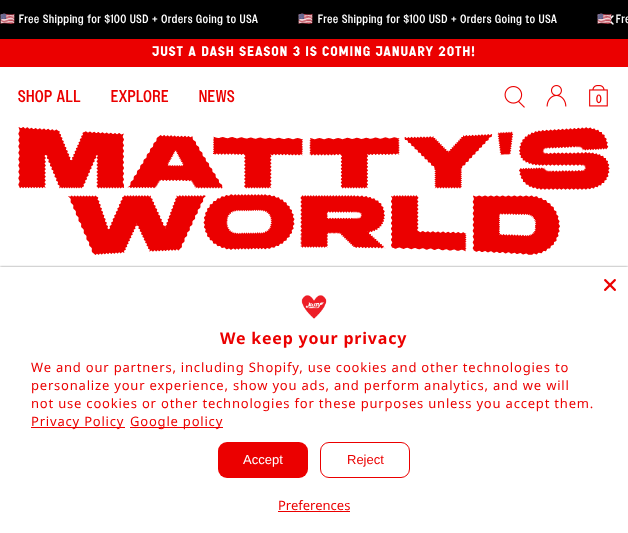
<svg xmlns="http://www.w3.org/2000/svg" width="628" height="533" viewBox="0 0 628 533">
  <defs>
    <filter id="blur1" x="-50%" y="-200%" width="200%" height="500%"><feGaussianBlur stdDeviation="1"/></filter>
  </defs>
  <rect width="100%" height="100%" fill="#ffffff"/>
  <rect x="0" y="0" width="628" height="39" fill="#000000"/>
  <text x="0" y="23" font-family="Noto Color Emoji" font-size="12" letter-spacing="0.8" fill="#ffffff">🇺🇸</text>
  <text x="19" y="23" font-family="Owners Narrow" font-size="12" font-weight="500" letter-spacing="0.8" fill="#ffffff">Free Shipping for $100 USD + Orders Going to USA</text>
  <text x="298" y="23" font-family="Noto Color Emoji" font-size="12" letter-spacing="0.8" fill="#ffffff">🇺🇸</text>
  <text x="318" y="23" font-family="Owners Narrow" font-size="12" font-weight="500" letter-spacing="0.8" fill="#ffffff">Free Shipping for $100 USD + Orders Going to USA</text>
  <text x="597" y="23" font-family="Noto Color Emoji" font-size="12" letter-spacing="0.8" fill="#ffffff">🇺🇸</text>
  <text x="616" y="23" font-family="Owners Narrow" font-size="12" font-weight="500" letter-spacing="0.8" fill="#ffffff">Fre</text>
  <image x="611" y="15" width="3" height="10" href="img1.png"/>
  <rect x="0" y="39" width="628" height="28" fill="#eb0000"/>
  <text x="152" y="56" font-family="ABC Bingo" font-size="14" font-weight="bold" letter-spacing="0.8" fill="#ffffff">Just a Dash season 3 is coming january 20th!</text>
  <text x="18" y="102" font-family="Owners Narrow" font-size="17" font-weight="500" letter-spacing="0.8" fill="#eb0000">SHOP ALL</text>
  <text x="111" y="102" font-family="Owners Narrow" font-size="17" font-weight="500" letter-spacing="0.8" fill="#eb0000">EXPLORE</text>
  <text x="199" y="102" font-family="Owners Narrow" font-size="17" font-weight="500" letter-spacing="0.8" fill="#eb0000">NEWS</text>
  <image x="504" y="86" width="21" height="22" href="img2.png"/>
  <image x="546" y="85" width="21" height="22" href="img3.png"/>
  <image x="589" y="85" width="19" height="22" href="img4.png"/>
  <text x="596" y="103" font-family="Owners Narrow" font-size="12" font-weight="500" letter-spacing="0.8" fill="#eb0000">0</text>
  <image x="18" y="127" width="592" height="128" href="img5.png"/>
  <rect x="0" y="267" width="628" height="266" fill="#000000" fill-opacity="0.5" filter="url(#blur1)"/>
  <rect x="0" y="267" width="628" height="266" fill="#ffffff"/>
  <image x="604" y="279" width="12" height="12" href="img6.png"/>
  <image x="301" y="295" width="26" height="24" href="img7.png"/>
  <text x="220" y="344" font-family="Noto Sans" font-size="16" font-weight="bold" letter-spacing="0.8" fill="#eb0000">We keep your privacy</text>
  <text x="31" y="372" font-family="Noto Sans" font-size="13" letter-spacing="0.8" fill="#eb0000">We and our partners, including Shopify, use cookies and other technologies to</text>
  <text x="31" y="390" font-family="Noto Sans" font-size="13" letter-spacing="0.8" fill="#eb0000">personalize your experience, show you ads, and perform analytics, and we will</text>
  <text x="31" y="408" font-family="Noto Sans" font-size="13" letter-spacing="0.8" fill="#eb0000">not use cookies or other technologies for these purposes unless you accept them.</text>
  <rect x="31" y="427" width="94" height="1" fill="#eb0000"/>
  <text x="31" y="426" font-family="Noto Sans" font-size="13" letter-spacing="0.8" fill="#eb0000">Privacy Policy</text>
  <rect x="130" y="427" width="93" height="1" fill="#eb0000"/>
  <text x="130" y="426" font-family="Noto Sans" font-size="13" letter-spacing="0.8" fill="#eb0000">Google policy</text>
  <rect x="218" y="442" width="90" height="36" rx="9" fill="#eb0000"/>
  <text x="243" y="464" font-family="Liberation Sans" font-size="13" fill="#ffffff">Accept</text>
  <rect x="320.5" y="442.5" width="89" height="35" rx="8.5" fill="none" stroke="#eb0000"/>
  <text x="347" y="464" font-family="Liberation Sans" font-size="13" fill="#eb0000">Reject</text>
  <text x="278" y="510" font-family="Noto Sans" font-size="13" fill="#eb0000">Preferences</text>
  <rect x="278" y="511" width="72" height="1" fill="#eb0000"/>
</svg>
